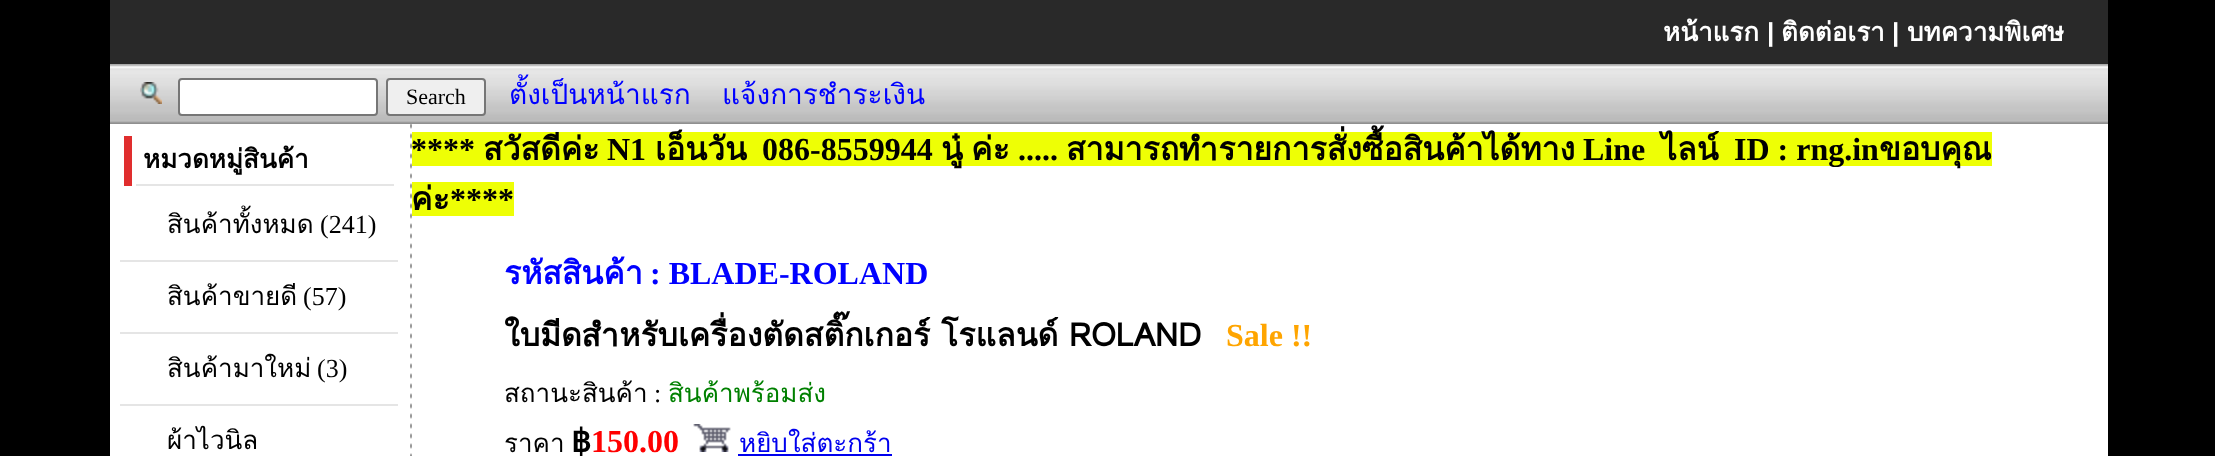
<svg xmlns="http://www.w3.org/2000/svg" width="2215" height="456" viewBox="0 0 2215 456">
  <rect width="100%" height="100%" fill="#000000"/>
  <rect x="110" y="124" width="1998" height="332" fill="#ffffff"/>
  <rect x="110" y="0" width="1998" height="64" fill="#292929"/>
  <text x="1663" y="41" font-family="Loma" font-size="26" font-weight="bold" fill="#ffffff">หน้าแรก</text>
  <text x="1767" y="41" font-family="Liberation Sans" font-size="26" font-weight="bold" fill="#ffffff">|</text>
  <text x="1781" y="41" font-family="Loma" font-size="26" font-weight="bold" fill="#ffffff">ติดต่อเรา</text>
  <text x="1907" y="41" font-family="Loma" font-size="26" font-weight="bold" fill="#ffffff">บทความพิเศษ</text>
  <text x="1892" y="41" font-family="Liberation Sans" font-size="26" font-weight="bold" fill="#ffffff">|</text>
  <image x="110" y="64" width="1998" height="60" href="img1.png"/>
  <image x="140" y="82" width="22" height="22" href="img2.png"/>
  <rect x="179" y="79" width="198" height="36" rx="3" fill="#ffffff" stroke="#767676" stroke-width="2"/>
  <rect x="387" y="79" width="98" height="36" rx="3" fill="#efefef" stroke="#767676" stroke-width="2"/>
  <text x="406" y="104" font-family="Liberation Serif" font-size="22" fill="#000000">Search</text>
  <text x="509" y="104" font-family="Loma" font-size="28" fill="#0000ff">ตั้งเป็นหน้าแรก</text>
  <text x="722" y="104" font-family="Loma" font-size="28" fill="#0000ff">แจ้งการชำระเงิน</text>
  <image x="410" y="124" width="2" height="332" href="img3.png"/>
  <rect x="124" y="136" width="8" height="50" fill="#e02e2e"/>
  <rect x="136" y="184" width="258" height="2" fill="#e5e5e5"/>
  <text x="143" y="168" font-family="Loma" font-size="26" font-weight="bold" fill="#000000">หมวดหมู่สินค้า</text>
  <text x="167" y="233" font-family="Loma" font-size="26" fill="#000000">สินค้าทั้งหมด</text>
  <text x="320" y="233" font-family="Liberation Serif" font-size="26" fill="#000000">(241)</text>
  <rect x="120" y="260" width="278" height="2" fill="#e5e5e5"/>
  <text x="167" y="305" font-family="Loma" font-size="26" fill="#000000">สินค้าขายดี</text>
  <text x="303" y="305" font-family="Liberation Serif" font-size="26" fill="#000000">(57)</text>
  <rect x="120" y="332" width="278" height="2" fill="#e5e5e5"/>
  <text x="167" y="377" font-family="Loma" font-size="26" fill="#000000">สินค้ามาใหม่</text>
  <text x="317" y="377" font-family="Liberation Serif" font-size="26" fill="#000000">(3)</text>
  <rect x="120" y="404" width="278" height="2" fill="#e5e5e5"/>
  <text x="167" y="449" font-family="Loma" font-size="26" fill="#000000">ผ้าไวนิล</text>
  <rect x="412" y="132" width="1580" height="34" fill="#eeff05"/>
  <text x="411" y="160" font-family="Liberation Serif" font-size="32" font-weight="bold" fill="#000000">****</text>
  <text x="483" y="160" font-family="Loma" font-size="32" font-weight="bold" fill="#000000">สวัสดีค่ะ</text>
  <text x="607" y="160" font-family="Liberation Serif" font-size="32" font-weight="bold" fill="#000000">N1</text>
  <text x="655" y="160" font-family="Loma" font-size="32" font-weight="bold" fill="#000000">เอ็นวัน</text>
  <text x="762" y="160" font-family="Liberation Serif" font-size="32" font-weight="bold" fill="#000000">086-8559944</text>
  <text x="941" y="160" font-family="Loma" font-size="32" font-weight="bold" fill="#000000">นู๋</text>
  <text x="971" y="160" font-family="Loma" font-size="32" font-weight="bold" fill="#000000">ค่ะ</text>
  <text x="1018" y="160" font-family="Liberation Serif" font-size="32" font-weight="bold" fill="#000000">.....</text>
  <text x="1066" y="160" font-family="Loma" font-size="32" font-weight="bold" fill="#000000">สามารถทำรายการสั่งซื้อสินค้าได้ทาง</text>
  <text x="1583" y="160" font-family="Liberation Serif" font-size="32" font-weight="bold" fill="#000000">Line</text>
  <text x="1661" y="160" font-family="Loma" font-size="32" font-weight="bold" fill="#000000">ไลน์</text>
  <text x="1734" y="160" font-family="Liberation Serif" font-size="32" font-weight="bold" fill="#000000">ID : rng.in</text>
  <text x="1879" y="160" font-family="Loma" font-size="32" font-weight="bold" fill="#000000">ขอบคุณ</text>
  <rect x="412" y="182" width="102" height="34" fill="#eeff05"/>
  <text x="411" y="210" font-family="Loma" font-size="32" font-weight="bold" fill="#000000">ค่ะ</text>
  <text x="450" y="210" font-family="Liberation Serif" font-size="32" font-weight="bold" fill="#000000">****</text>
  <text x="504" y="284" font-family="Loma" font-size="32" font-weight="bold" fill="#0000ff">รหัสสินค้า</text>
  <text x="650" y="284" font-family="Liberation Serif" font-size="32" font-weight="bold" fill="#0000ff">: BLADE-ROLAND</text>
  <text x="504" y="346" font-family="Loma" font-size="32" font-weight="bold" fill="#000000">ใบมีดสำหรับเครื่องตัดสติ๊กเกอร์ โรแลนด์ ROLAND</text>
  <text x="1226" y="346" font-family="Liberation Serif" font-size="32" font-weight="bold" fill="#ffa500">Sale !!</text>
  <text x="504" y="402" font-family="Loma" font-size="26" fill="#000000">สถานะสินค้า</text>
  <text x="654" y="402" font-family="Liberation Serif" font-size="26" fill="#000000">:</text>
  <text x="668" y="402" font-family="Loma" font-size="26" fill="#008000">สินค้าพร้อมส่ง</text>
  <text x="504" y="452" font-family="Loma" font-size="26" fill="#000000">ราคา</text>
  <text x="571" y="452" font-family="DejaVu Sans" font-size="32" font-weight="bold" fill="#000000">฿</text>
  <text x="591" y="452" font-family="Liberation Serif" font-size="32" font-weight="bold" fill="#ff0000">150.00</text>
  <image x="693" y="424" width="38" height="28" href="img4.png"/>
  <text x="739" y="452" font-family="Loma" font-size="26" fill="#0000ee">หยิบใส่ตะกร้า</text>
  <rect x="738" y="454" width="154" height="2" fill="#0000ee"/>
</svg>
